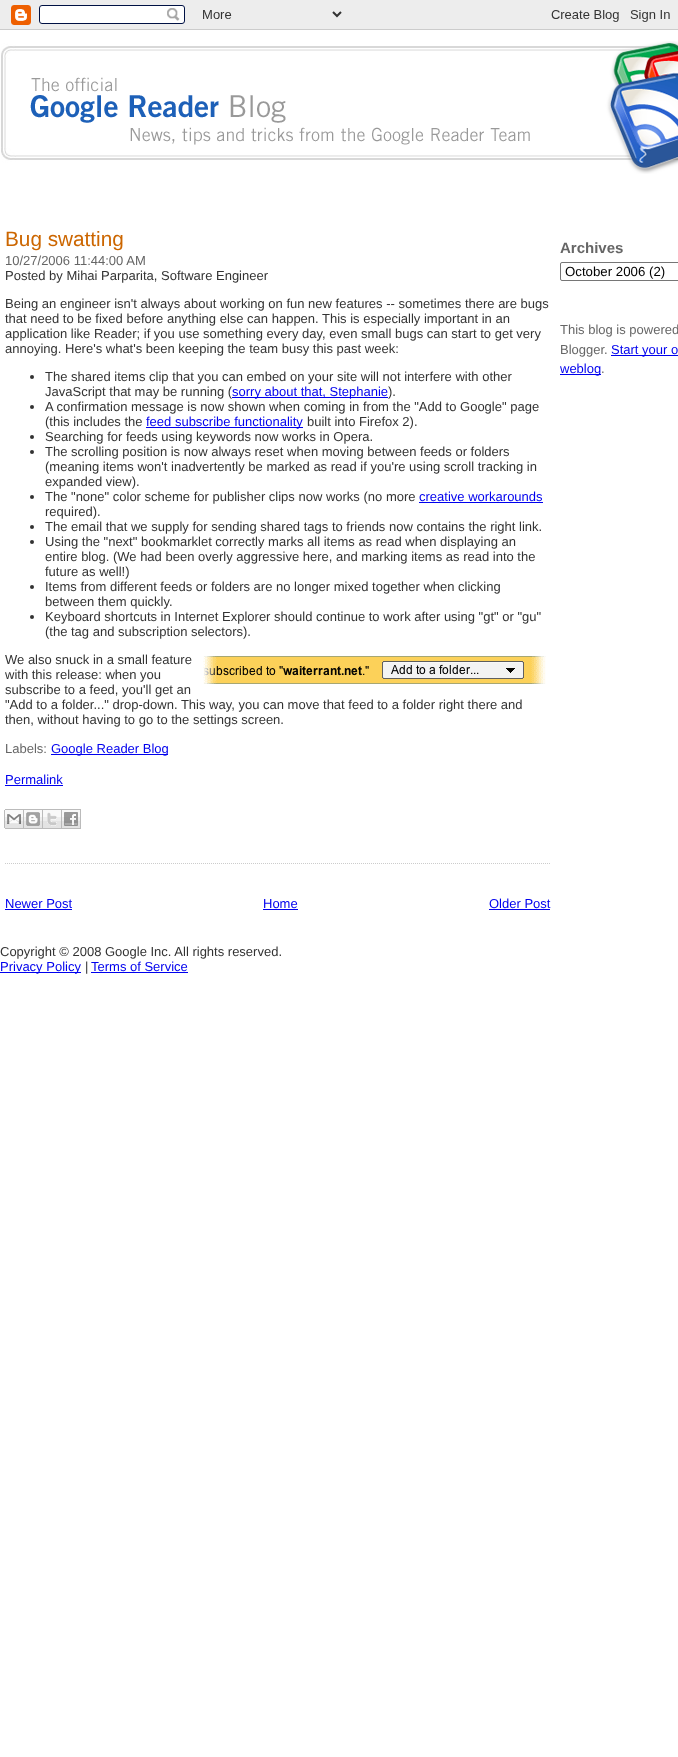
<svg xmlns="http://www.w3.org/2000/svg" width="678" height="1757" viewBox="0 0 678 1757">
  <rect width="100%" height="100%" fill="#ffffff"/>
  <image x="0" y="0" width="678" height="30" href="img1.png"/>
  <image x="1" y="41" width="677" height="133" href="img2.png"/>
  <path d="M5 863.5H550" fill="none" stroke="#cccccc" stroke-dasharray="1 1"/>
  <text x="5" y="246" font-family="Liberation Sans" font-size="20.75" fill="#cc6600">Bug swatting</text>
  <text x="5" y="265" font-family="Liberation Sans" font-size="13" fill="#666666">10/27/2006 11:44:00 AM</text>
  <text x="5" y="280" font-family="Liberation Sans" font-size="13" fill="#333333">Posted by Mihai Parparita, Software Engineer</text>
  <text x="5" y="308" font-family="Liberation Sans" font-size="13" fill="#333333">Being an engineer isn't always about working on fun new features -- sometimes there are bugs</text>
  <text x="5" y="323" font-family="Liberation Sans" font-size="13" fill="#333333">that need to be fixed before anything else can happen. This is especially important in an</text>
  <text x="5" y="338" font-family="Liberation Sans" font-size="13" fill="#333333">application like Reader; if you use something every day, even small bugs can start to get very</text>
  <text x="5" y="353" font-family="Liberation Sans" font-size="13" fill="#333333">annoying. Here's what's been keeping the team busy this past week:</text>
  <circle cx="32" cy="377" r="2" fill="#333333"/>
  <text x="45" y="381" font-family="Liberation Sans" font-size="13" fill="#333333">The shared items clip that you can embed on your site will not interfere with other</text>
  <text x="45" y="396" font-family="Liberation Sans" font-size="13" fill="#333333">JavaScript that may be running (</text>
  <rect x="232" y="397" width="156" height="1" fill="#0000ee"/>
  <text x="232" y="396" font-family="Liberation Sans" font-size="13" fill="#0000ee">sorry about that, Stephanie</text>
  <text x="388" y="396" font-family="Liberation Sans" font-size="13" fill="#333333">).</text>
  <circle cx="32" cy="407" r="2" fill="#333333"/>
  <text x="45" y="411" font-family="Liberation Sans" font-size="13" fill="#333333">A confirmation message is now shown when coming in from the "Add to Google" page</text>
  <text x="45" y="426" font-family="Liberation Sans" font-size="13" fill="#333333">(this includes the</text>
  <rect x="146" y="427" width="157" height="1" fill="#0000ee"/>
  <text x="146" y="426" font-family="Liberation Sans" font-size="13" fill="#0000ee">feed subscribe functionality</text>
  <text x="307" y="426" font-family="Liberation Sans" font-size="13" fill="#333333">built into Firefox 2).</text>
  <circle cx="32" cy="437" r="2" fill="#333333"/>
  <text x="45" y="441" font-family="Liberation Sans" font-size="13" fill="#333333">Searching for feeds using keywords now works in Opera.</text>
  <circle cx="32" cy="452" r="2" fill="#333333"/>
  <text x="45" y="456" font-family="Liberation Sans" font-size="13" fill="#333333">The scrolling position is now always reset when moving between feeds or folders</text>
  <text x="45" y="471" font-family="Liberation Sans" font-size="13" fill="#333333">(meaning items won't inadvertently be marked as read if you're using scroll tracking in</text>
  <text x="45" y="486" font-family="Liberation Sans" font-size="13" fill="#333333">expanded view).</text>
  <circle cx="32" cy="497" r="2" fill="#333333"/>
  <text x="45" y="501" font-family="Liberation Sans" font-size="13" fill="#333333">The "none" color scheme for publisher clips now works (no more</text>
  <text x="419" y="501" font-family="Liberation Sans" font-size="13" fill="#0000ee">creative workarounds</text>
  <rect x="419" y="502" width="124" height="1" fill="#0000ee"/>
  <text x="45" y="516" font-family="Liberation Sans" font-size="13" fill="#333333">required).</text>
  <circle cx="32" cy="527" r="2" fill="#333333"/>
  <text x="45" y="531" font-family="Liberation Sans" font-size="13" fill="#333333">The email that we supply for sending shared tags to friends now contains the right link.</text>
  <circle cx="32" cy="542" r="2" fill="#333333"/>
  <text x="45" y="546" font-family="Liberation Sans" font-size="13" fill="#333333">Using the "next" bookmarklet correctly marks all items as read when displaying an</text>
  <text x="45" y="561" font-family="Liberation Sans" font-size="13" fill="#333333">entire blog. (We had been overly aggressive here, and marking items as read into the</text>
  <text x="45" y="576" font-family="Liberation Sans" font-size="13" fill="#333333">future as well!)</text>
  <circle cx="32" cy="587" r="2" fill="#333333"/>
  <text x="45" y="591" font-family="Liberation Sans" font-size="13" fill="#333333">Items from different feeds or folders are no longer mixed together when clicking</text>
  <text x="45" y="606" font-family="Liberation Sans" font-size="13" fill="#333333">between them quickly.</text>
  <circle cx="32" cy="617" r="2" fill="#333333"/>
  <text x="45" y="621" font-family="Liberation Sans" font-size="13" fill="#333333">Keyboard shortcuts in Internet Explorer should continue to work after using "gt" or "gu"</text>
  <text x="45" y="636" font-family="Liberation Sans" font-size="13" fill="#333333">(the tag and subscription selectors).</text>
  <text x="5" y="664" font-family="Liberation Sans" font-size="13" fill="#333333">We also snuck in a small feature</text>
  <image x="203" y="656" width="343" height="28" href="img3.png"/>
  <text x="5" y="679" font-family="Liberation Sans" font-size="13" fill="#333333">with this release: when you</text>
  <text x="5" y="694" font-family="Liberation Sans" font-size="13" fill="#333333">subscribe to a feed, you'll get an</text>
  <text x="5" y="709" font-family="Liberation Sans" font-size="13" fill="#333333">"Add to a folder..." drop-down. This way, you can move that feed to a folder right there and</text>
  <text x="5" y="724" font-family="Liberation Sans" font-size="13" fill="#333333">then, without having to go to the settings screen.</text>
  <text x="5" y="753" font-family="Liberation Sans" font-size="13" fill="#666666">Labels:</text>
  <rect x="51" y="754" width="117" height="1" fill="#0000ee"/>
  <text x="51" y="753" font-family="Liberation Sans" font-size="13" fill="#0000ee">Google Reader Blog</text>
  <text x="5" y="784" font-family="Liberation Sans" font-size="13" fill="#0000ee">Permalink</text>
  <rect x="5" y="785" width="58" height="1" fill="#0000ee"/>
  <image x="4" y="809" width="20" height="20" href="img4.png"/>
  <image x="24" y="809" width="19" height="20" href="img5.png"/>
  <image x="43" y="809" width="19" height="20" href="img6.png"/>
  <image x="62" y="809" width="19" height="20" href="img7.png"/>
  <text x="5" y="908" font-family="Liberation Sans" font-size="13" fill="#0000ee">Newer Post</text>
  <rect x="5" y="909" width="67" height="1" fill="#0000ee"/>
  <text x="263" y="908" font-family="Liberation Sans" font-size="13" fill="#0000ee">Home</text>
  <rect x="263" y="909" width="35" height="1" fill="#0000ee"/>
  <text x="489" y="908" font-family="Liberation Sans" font-size="13" fill="#0000ee">Older Post</text>
  <rect x="489" y="909" width="61" height="1" fill="#0000ee"/>
  <text x="560" y="253" font-family="Liberation Sans" font-size="15" font-weight="bold" fill="#666666">Archives</text>
  <rect x="560.5" y="262.5" width="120" height="18" rx="1.5" fill="none" stroke="#767676"/>
  <text x="565" y="276" font-family="Liberation Sans" font-size="13.25" fill="#000000">October 2006 (2)</text>
  <text x="560" y="334" font-family="Liberation Sans" font-size="13" fill="#666666">This blog is powered</text>
  <text x="560" y="354" font-family="Liberation Sans" font-size="13" fill="#666666">Blogger.</text>
  <rect x="611" y="355" width="67" height="1" fill="#0000ee"/>
  <text x="611" y="354" font-family="Liberation Sans" font-size="13" fill="#0000ee">Start your o</text>
  <rect x="560" y="374" width="41" height="1" fill="#0000ee"/>
  <text x="560" y="373" font-family="Liberation Sans" font-size="13" fill="#0000ee">weblog</text>
  <text x="601" y="373" font-family="Liberation Sans" font-size="13" fill="#666666">.</text>
  <text x="0" y="956" font-family="Liberation Sans" font-size="13" fill="#333333">Copyright © 2008 Google Inc. All rights reserved.</text>
  <rect x="0" y="972" width="81" height="1" fill="#0000ee"/>
  <text x="0" y="971" font-family="Liberation Sans" font-size="13" fill="#0000ee">Privacy Policy</text>
  <text x="85" y="971" font-family="Liberation Sans" font-size="13" fill="#333333">|</text>
  <text x="91" y="971" font-family="Liberation Sans" font-size="13" fill="#0000ee">Terms of Service</text>
  <rect x="91" y="972" width="97" height="1" fill="#0000ee"/>
</svg>
